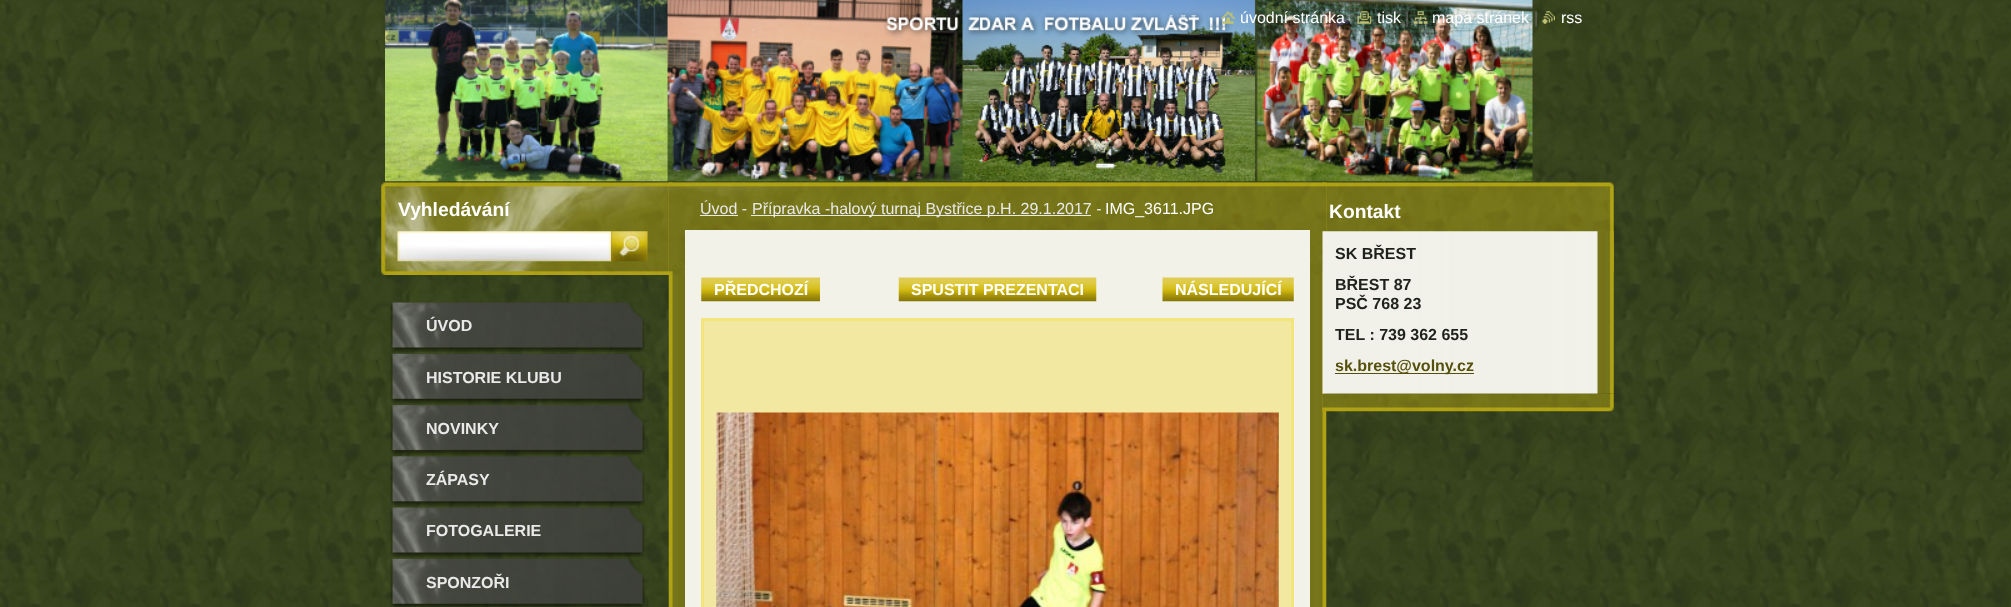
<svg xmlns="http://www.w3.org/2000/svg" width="2011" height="607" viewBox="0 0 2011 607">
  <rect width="100%" height="100%" fill="#ffffff"/>
  <image x="0" y="0" width="2011" height="607" href="img1.png"/>
  <image x="385" y="0" width="1148" height="182" href="img2.png"/>
  <image x="1221" y="11" width="14" height="13" href="img3.png"/>
  <text x="1240" y="23" font-family="Liberation Sans" font-size="16" fill="#ffffff">úvodní stránka</text>
  <image x="1357" y="11" width="15" height="13" href="img4.png"/>
  <text x="1377" y="23" font-family="Liberation Sans" font-size="16" fill="#ffffff">tisk</text>
  <text x="1405" y="23" font-family="Liberation Sans" font-size="16" fill="#646464">|</text>
  <image x="1413" y="11" width="15" height="13" href="img5.png"/>
  <text x="1432" y="23" font-family="Liberation Sans" font-size="16" fill="#ffffff">mapa stránek</text>
  <text x="1534" y="23" font-family="Liberation Sans" font-size="16" fill="#646464">|</text>
  <image x="1542" y="11" width="13" height="13" href="img6.png"/>
  <text x="1561" y="23" font-family="Liberation Sans" font-size="16" fill="#ffffff">rss</text>
  <image x="381" y="182" width="1233" height="93" href="img7.png"/>
  <text x="398" y="216" font-family="Liberation Sans" font-size="19.25" font-weight="bold" fill="#ffffff">Vyhledávání</text>
  <image x="397" y="231" width="215" height="31" href="img8.png"/>
  <image x="611" y="231" width="37" height="31" href="img9.png"/>
  <image x="668" y="182" width="659" height="425" href="img10.png"/>
  <image x="669" y="182" width="657" height="93" href="img11.png"/>
  <text x="700" y="214" font-family="Liberation Sans" font-size="16" fill="#e9e9e9">Úvod -</text>
  <rect x="700" y="215" width="38" height="1" fill="#e9e9e9"/>
  <rect x="751" y="215" width="340" height="1" fill="#e9e9e9"/>
  <text x="752" y="214" font-family="Liberation Sans" font-size="16" fill="#e9e9e9">Přípravka -halový turnaj Bystřice p.H. 29.1.2017 -</text>
  <text x="1105" y="214" font-family="Liberation Sans" font-size="16" fill="#ffffff">IMG_3611.JPG</text>
  <rect x="685" y="230" width="625" height="377" fill="#f2f2e9"/>
  <image x="701" y="277" width="119" height="25" href="img12.png"/>
  <text x="714" y="295" font-family="Liberation Sans" font-size="16" font-weight="bold" fill="#ffffff">PŘEDCHOZÍ</text>
  <image x="898" y="277" width="199" height="25" href="img13.png"/>
  <text x="911" y="295" font-family="Liberation Sans" font-size="16" font-weight="bold" fill="#ffffff">SPUSTIT PREZENTACI</text>
  <image x="1162" y="277" width="132" height="25" href="img14.png"/>
  <text x="1175" y="295" font-family="Liberation Sans" font-size="16" font-weight="bold" fill="#ffffff">NÁSLEDUJÍCÍ</text>
  <rect x="702.5" y="319.5" width="590" height="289" fill="#f2e8a1" stroke="#f3e47c" stroke-width="3"/>
  <image x="716" y="412" width="563" height="195" href="img15.png"/>
  <text x="1329" y="218" font-family="Liberation Sans" font-size="19.25" font-weight="bold" fill="#ffffff">Kontakt</text>
  <image x="1322" y="231" width="292" height="163" href="img16.png"/>
  <text x="1335" y="259" font-family="Liberation Sans" font-size="16" font-weight="bold" fill="#1f221c">SK BŘEST</text>
  <text x="1335" y="290" font-family="Liberation Sans" font-size="16" font-weight="bold" fill="#1f221c">BŘEST 87</text>
  <text x="1335" y="309" font-family="Liberation Sans" font-size="16" font-weight="bold" fill="#1f221c">PSČ 768 23</text>
  <text x="1335" y="340" font-family="Liberation Sans" font-size="16" font-weight="bold" fill="#1f221c">TEL : 739 362 655</text>
  <rect x="1335" y="373" width="139" height="1" fill="#56500d"/>
  <text x="1335" y="371" font-family="Liberation Sans" font-size="16" font-weight="bold" fill="#56500d">sk.brest@volny.cz</text>
  <image x="1322" y="393" width="292" height="19" href="img17.png"/>
  <image x="390" y="302" width="255" height="50" href="img18.png"/>
  <text x="426" y="331" font-family="Liberation Sans" font-size="16" font-weight="bold" fill="#e9e9e9">ÚVOD</text>
  <image x="390" y="353" width="255" height="51" href="img19.png"/>
  <text x="426" y="383" font-family="Liberation Sans" font-size="16" font-weight="bold" fill="#e9e9e9">HISTORIE KLUBU</text>
  <image x="390" y="405" width="255" height="50" href="img20.png"/>
  <text x="426" y="434" font-family="Liberation Sans" font-size="16" font-weight="bold" fill="#e9e9e9">NOVINKY</text>
  <image x="390" y="456" width="255" height="50" href="img21.png"/>
  <text x="426" y="485" font-family="Liberation Sans" font-size="16" font-weight="bold" fill="#e9e9e9">ZÁPASY</text>
  <image x="390" y="507" width="255" height="50" href="img22.png"/>
  <text x="426" y="536" font-family="Liberation Sans" font-size="16" font-weight="bold" fill="#e9e9e9">FOTOGALERIE</text>
  <image x="390" y="558" width="255" height="49" href="img23.png"/>
  <text x="426" y="588" font-family="Liberation Sans" font-size="16" font-weight="bold" fill="#e9e9e9">SPONZOŘI</text>
</svg>
